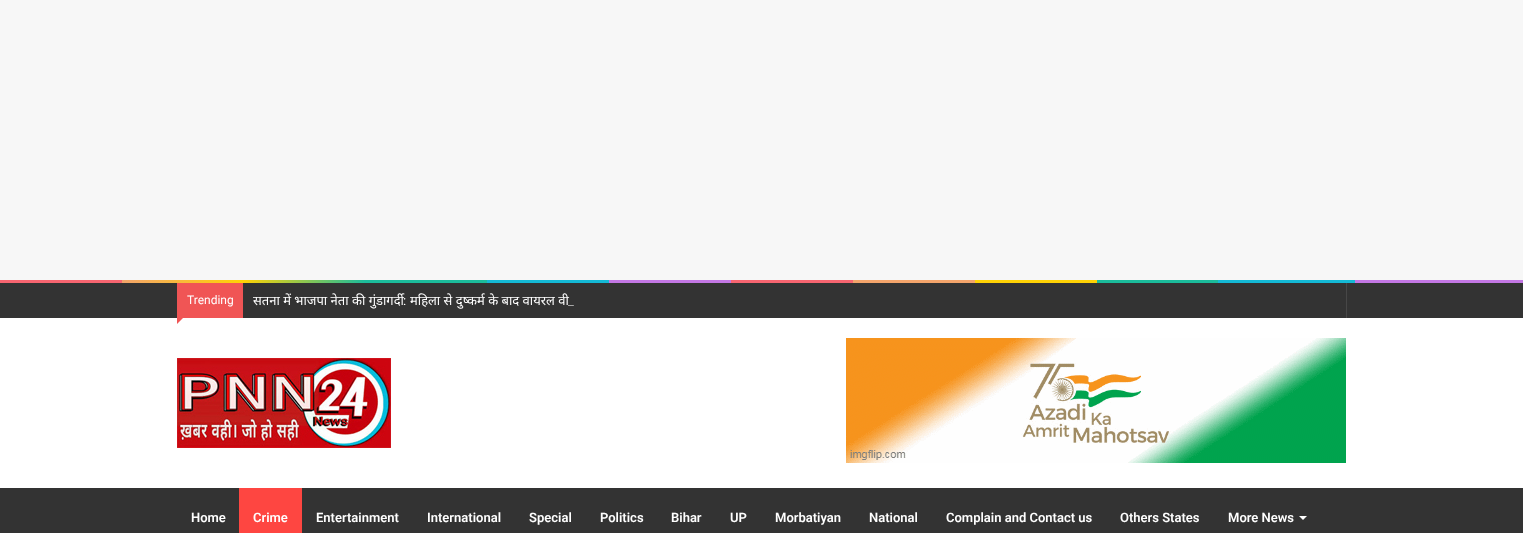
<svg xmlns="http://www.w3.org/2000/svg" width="1523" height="533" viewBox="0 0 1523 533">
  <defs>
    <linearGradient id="g1" gradientUnits="userSpaceOnUse" x1="0" y1="282" x2="1523" y2="281"><stop offset="0" stop-color="#f76570"/><stop offset="0.08" stop-color="#f76570"/><stop offset="0.08" stop-color="#f3a46b"/><stop offset="0.16" stop-color="#ffd205"/><stop offset="0.24" stop-color="#1bbc9b"/><stop offset="0.32" stop-color="#1bbc9b"/><stop offset="0.32" stop-color="#14b9d5"/><stop offset="0.4" stop-color="#14b9d5"/><stop offset="0.4" stop-color="#c377e4"/><stop offset="0.48" stop-color="#c377e4"/><stop offset="0.48" stop-color="#f76570"/><stop offset="0.56" stop-color="#f76570"/><stop offset="0.56" stop-color="#f3a46b"/><stop offset="0.64" stop-color="#f3a46b"/><stop offset="0.64" stop-color="#ffd205"/><stop offset="0.72" stop-color="#ffd205"/><stop offset="0.72" stop-color="#1bbc9b"/><stop offset="0.8" stop-color="#1bbc9b"/><stop offset="0.8" stop-color="#14b9d5"/><stop offset="0.89" stop-color="#14b9d5"/><stop offset="0.89" stop-color="#c377e4"/><stop offset="1" stop-color="#c377e4"/></linearGradient>
  </defs>
  <rect width="100%" height="100%" fill="#f7f7f7"/>
  <rect x="0" y="318" width="1523" height="170" fill="#ffffff"/>
  <rect x="0" y="280" width="1523" height="3" fill="url(#g1)"/>
  <rect x="0" y="283" width="1523" height="35" fill="#333333"/>
  <rect x="1346" y="283" width="1" height="35" fill="#474747"/>
  <rect x="177" y="283" width="66" height="35" fill="#f05555"/>
  <text x="187" y="304" font-family="Roboto" font-size="12" fill="#ffffff">Trending</text>
  <path d="M177 315H186L177 324Z" fill="#f05555"/>
  <text x="253" y="305" font-family="Noto Sans" font-size="13" fill="#ffffff">सतना में भाजपा नेता की गुंडागर्दी</text>
  <text x="403" y="305" font-family="Roboto" font-size="13" fill="#ffffff">:</text>
  <text x="410" y="305" font-family="Noto Sans" font-size="13" fill="#ffffff">महिला से दुष्कर्म के बाद वायरल वी</text>
  <text x="568" y="305" font-family="Roboto" font-size="13" fill="#aaaaaa">_</text>
  <image x="177" y="358" width="214" height="90" href="img1.png"/>
  <image x="846" y="338" width="500" height="125" href="img2.png"/>
  <rect x="0" y="488" width="1523" height="45" fill="#333333"/>
  <text x="191" y="522" font-family="Roboto" font-size="13" font-weight="600" fill="#ffffff">Home</text>
  <rect x="239" y="488" width="63" height="45" fill="#fe4641"/>
  <text x="253" y="522" font-family="Roboto" font-size="13" font-weight="600" fill="#ffffff">Crime</text>
  <text x="316" y="522" font-family="Roboto" font-size="13" font-weight="600" fill="#ffffff">Entertainment</text>
  <text x="427" y="522" font-family="Roboto" font-size="13" font-weight="600" fill="#ffffff">International</text>
  <text x="529" y="522" font-family="Roboto" font-size="13" font-weight="600" fill="#ffffff">Special</text>
  <text x="600" y="522" font-family="Roboto" font-size="13" font-weight="600" fill="#ffffff">Politics</text>
  <text x="671" y="522" font-family="Roboto" font-size="13" font-weight="600" fill="#ffffff">Bihar</text>
  <text x="730" y="522" font-family="Roboto" font-size="13" font-weight="600" fill="#ffffff">UP</text>
  <text x="775" y="522" font-family="Roboto" font-size="13" font-weight="600" fill="#ffffff">Morbatiyan</text>
  <text x="869" y="522" font-family="Roboto" font-size="13" font-weight="600" fill="#ffffff">National</text>
  <text x="946" y="522" font-family="Roboto" font-size="13" font-weight="600" fill="#ffffff">Complain and Contact us</text>
  <text x="1120" y="522" font-family="Roboto" font-size="13" font-weight="600" fill="#ffffff">Others States</text>
  <text x="1228" y="522" font-family="Roboto" font-size="13" font-weight="600" fill="#ffffff">More News</text>
  <path d="M1299 516H1307L1303 520Z" fill="#ffffff"/>
</svg>
